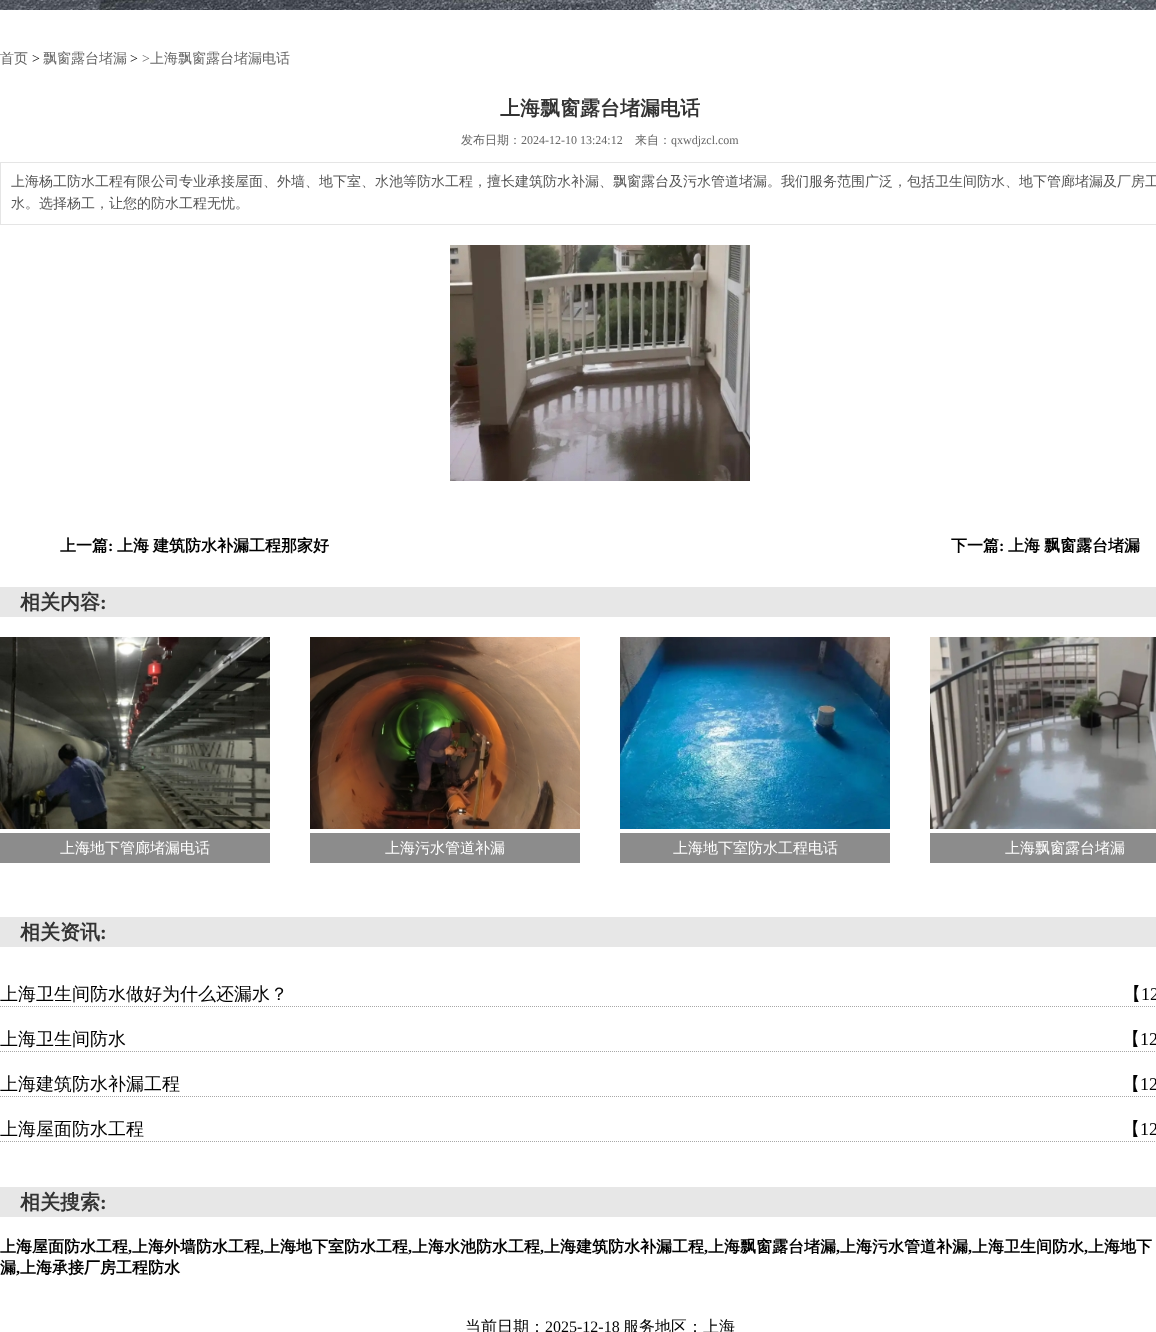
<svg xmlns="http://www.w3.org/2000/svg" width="1156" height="1332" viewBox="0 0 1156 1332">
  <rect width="100%" height="100%" fill="#ffffff"/>
  <image x="0" y="0" width="1156" height="10" href="img1.png"/>
  <text x="0" y="63" font-family="WenQuanYi Zen Hei" font-size="14" font-weight="500" fill="#666666">首页</text>
  <text x="32" y="63" font-family="Liberation Serif" font-size="14" fill="#000000">&gt;</text>
  <text x="43" y="63" font-family="WenQuanYi Zen Hei" font-size="14" font-weight="500" fill="#666666">飘窗露台堵漏</text>
  <text x="130" y="63" font-family="Liberation Serif" font-size="14" fill="#000000">&gt;</text>
  <text x="142" y="63" font-family="Liberation Serif" font-size="14" fill="#666666">&gt;</text>
  <text x="150" y="63" font-family="WenQuanYi Zen Hei" font-size="14" font-weight="500" fill="#666666">上海飘窗露台堵漏电话</text>
  <text x="500" y="115" font-family="WenQuanYi Zen Hei" font-size="20" font-weight="bold" fill="#333333">上海飘窗露台堵漏电话</text>
  <text x="461" y="144" font-family="WenQuanYi Zen Hei" font-size="12" font-weight="500" fill="#666666">发布日期：</text>
  <text x="521" y="144" font-family="Liberation Serif" font-size="12" fill="#666666">2024-12-10 13:24:12</text>
  <text x="635" y="144" font-family="WenQuanYi Zen Hei" font-size="12" font-weight="500" fill="#666666">来自：</text>
  <text x="671" y="144" font-family="Liberation Serif" font-size="12" fill="#666666">qxwdjzcl.com</text>
  <rect x="0.5" y="162.5" width="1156" height="62" fill="none" stroke="#e5e5e5"/>
  <text x="11" y="186" font-family="WenQuanYi Zen Hei" font-size="14" font-weight="500" fill="#555555">上海杨工防水工程有限公司专业承接屋面、外墙、地下室、水池等防水工程，擅长建筑防水补漏、飘窗露台及污水管道堵漏。我们服务范围广泛，包括卫生间防水、地下管廊堵漏及厂房工</text>
  <text x="11" y="208" font-family="WenQuanYi Zen Hei" font-size="14" font-weight="500" fill="#555555">水。选择杨工，让您的防水工程无忧。</text>
  <image x="450" y="245" width="300" height="236" href="img2.png"/>
  <text x="60" y="551" font-family="WenQuanYi Zen Hei" font-size="16" font-weight="bold" fill="#000000">上一篇</text>
  <text x="108" y="551" font-family="Liberation Serif" font-size="16" font-weight="bold" fill="#000000">:</text>
  <text x="117" y="551" font-family="WenQuanYi Zen Hei" font-size="16" font-weight="bold" fill="#000000">上海</text>
  <text x="153" y="551" font-family="WenQuanYi Zen Hei" font-size="16" font-weight="bold" fill="#000000">建筑防水补漏工程那家好</text>
  <text x="951" y="551" font-family="WenQuanYi Zen Hei" font-size="16" font-weight="bold" fill="#000000">下一篇</text>
  <text x="999" y="551" font-family="Liberation Serif" font-size="16" font-weight="bold" fill="#000000">:</text>
  <text x="1008" y="551" font-family="WenQuanYi Zen Hei" font-size="16" font-weight="bold" fill="#000000">上海</text>
  <text x="1044" y="551" font-family="WenQuanYi Zen Hei" font-size="16" font-weight="bold" fill="#000000">飘窗露台堵漏</text>
  <rect x="0" y="587" width="1156" height="30" fill="#e7e7e7"/>
  <text x="20" y="609" font-family="WenQuanYi Zen Hei" font-size="20" font-weight="bold" fill="#333333">相关内容</text>
  <text x="100" y="609" font-family="Liberation Serif" font-size="20" font-weight="bold" fill="#333333">:</text>
  <image x="0" y="637" width="270" height="192" href="img3.png"/>
  <rect x="0" y="833" width="270" height="30" fill="#8c8c8c"/>
  <text x="60" y="853" font-family="WenQuanYi Zen Hei" font-size="15" font-weight="500" fill="#ffffff">上海地下管廊堵漏电话</text>
  <image x="310" y="637" width="270" height="192" href="img4.png"/>
  <rect x="310" y="833" width="270" height="30" fill="#8c8c8c"/>
  <text x="385" y="853" font-family="WenQuanYi Zen Hei" font-size="15" font-weight="500" fill="#ffffff">上海污水管道补漏</text>
  <image x="620" y="637" width="270" height="192" href="img5.png"/>
  <rect x="620" y="833" width="270" height="30" fill="#8c8c8c"/>
  <text x="673" y="853" font-family="WenQuanYi Zen Hei" font-size="15" font-weight="500" fill="#ffffff">上海地下室防水工程电话</text>
  <image x="930" y="637" width="226" height="192" href="img6.png"/>
  <rect x="930" y="833" width="226" height="30" fill="#8c8c8c"/>
  <text x="1005" y="853" font-family="WenQuanYi Zen Hei" font-size="15" font-weight="500" fill="#ffffff">上海飘窗露台堵漏</text>
  <rect x="0" y="917" width="1156" height="30" fill="#e7e7e7"/>
  <text x="20" y="939" font-family="WenQuanYi Zen Hei" font-size="20" font-weight="bold" fill="#333333">相关资讯</text>
  <text x="100" y="939" font-family="Liberation Serif" font-size="20" font-weight="bold" fill="#333333">:</text>
  <path d="M0 1006.5H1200" fill="none" stroke="#a7a7a7" stroke-dasharray="1 1"/>
  <text x="0" y="1000" font-family="WenQuanYi Zen Hei" font-size="18" font-weight="500" fill="#000000">上海卫生间防水做好为什么还漏水？</text>
  <text x="1123" y="1000" font-family="WenQuanYi Zen Hei" font-size="18" font-weight="500" fill="#000000">【</text>
  <text x="1141" y="1000" font-family="Liberation Serif" font-size="18" fill="#000000">12</text>
  <path d="M0 1051.5H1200" fill="none" stroke="#a7a7a7" stroke-dasharray="1 1"/>
  <text x="0" y="1045" font-family="WenQuanYi Zen Hei" font-size="18" font-weight="500" fill="#000000">上海卫生间防水</text>
  <text x="1122" y="1045" font-family="WenQuanYi Zen Hei" font-size="18" font-weight="500" fill="#000000">【</text>
  <text x="1140" y="1045" font-family="Liberation Serif" font-size="18" fill="#000000">12</text>
  <path d="M0 1096.5H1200" fill="none" stroke="#a7a7a7" stroke-dasharray="1 1"/>
  <text x="0" y="1090" font-family="WenQuanYi Zen Hei" font-size="18" font-weight="500" fill="#000000">上海建筑防水补漏工程</text>
  <text x="1122" y="1090" font-family="WenQuanYi Zen Hei" font-size="18" font-weight="500" fill="#000000">【</text>
  <text x="1140" y="1090" font-family="Liberation Serif" font-size="18" fill="#000000">12</text>
  <path d="M0 1141.5H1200" fill="none" stroke="#a7a7a7" stroke-dasharray="1 1"/>
  <text x="0" y="1135" font-family="WenQuanYi Zen Hei" font-size="18" font-weight="500" fill="#000000">上海屋面防水工程</text>
  <text x="1122" y="1135" font-family="WenQuanYi Zen Hei" font-size="18" font-weight="500" fill="#000000">【</text>
  <text x="1140" y="1135" font-family="Liberation Serif" font-size="18" fill="#000000">12</text>
  <rect x="0" y="1187" width="1156" height="30" fill="#e7e7e7"/>
  <text x="20" y="1209" font-family="WenQuanYi Zen Hei" font-size="20" font-weight="bold" fill="#333333">相关搜索</text>
  <text x="100" y="1209" font-family="Liberation Serif" font-size="20" font-weight="bold" fill="#333333">:</text>
  <text x="0" y="1252" font-family="WenQuanYi Zen Hei" font-size="16" font-weight="bold" fill="#000000">上海屋面防水工程</text>
  <text x="128" y="1252" font-family="Liberation Serif" font-size="16" font-weight="bold" fill="#000000">,</text>
  <text x="132" y="1252" font-family="WenQuanYi Zen Hei" font-size="16" font-weight="bold" fill="#000000">上海外墙防水工程</text>
  <text x="260" y="1252" font-family="Liberation Serif" font-size="16" font-weight="bold" fill="#000000">,</text>
  <text x="264" y="1252" font-family="WenQuanYi Zen Hei" font-size="16" font-weight="bold" fill="#000000">上海地下室防水工程</text>
  <text x="408" y="1252" font-family="Liberation Serif" font-size="16" font-weight="bold" fill="#000000">,</text>
  <text x="412" y="1252" font-family="WenQuanYi Zen Hei" font-size="16" font-weight="bold" fill="#000000">上海水池防水工程</text>
  <text x="540" y="1252" font-family="Liberation Serif" font-size="16" font-weight="bold" fill="#000000">,</text>
  <text x="544" y="1252" font-family="WenQuanYi Zen Hei" font-size="16" font-weight="bold" fill="#000000">上海建筑防水补漏工程</text>
  <text x="704" y="1252" font-family="Liberation Serif" font-size="16" font-weight="bold" fill="#000000">,</text>
  <text x="708" y="1252" font-family="WenQuanYi Zen Hei" font-size="16" font-weight="bold" fill="#000000">上海飘窗露台堵漏</text>
  <text x="836" y="1252" font-family="Liberation Serif" font-size="16" font-weight="bold" fill="#000000">,</text>
  <text x="840" y="1252" font-family="WenQuanYi Zen Hei" font-size="16" font-weight="bold" fill="#000000">上海污水管道补漏</text>
  <text x="968" y="1252" font-family="Liberation Serif" font-size="16" font-weight="bold" fill="#000000">,</text>
  <text x="972" y="1252" font-family="WenQuanYi Zen Hei" font-size="16" font-weight="bold" fill="#000000">上海卫生间防水</text>
  <text x="1084" y="1252" font-family="Liberation Serif" font-size="16" font-weight="bold" fill="#000000">,</text>
  <text x="1088" y="1252" font-family="WenQuanYi Zen Hei" font-size="16" font-weight="bold" fill="#000000">上海地下</text>
  <text x="0" y="1273" font-family="WenQuanYi Zen Hei" font-size="16" font-weight="bold" fill="#000000">漏</text>
  <text x="16" y="1273" font-family="Liberation Serif" font-size="16" font-weight="bold" fill="#000000">,</text>
  <text x="20" y="1273" font-family="WenQuanYi Zen Hei" font-size="16" font-weight="bold" fill="#000000">上海承接厂房工程防水</text>
  <text x="465" y="1332" font-family="WenQuanYi Zen Hei" font-size="16" font-weight="500" fill="#000000">当前日期：</text>
  <text x="545" y="1332" font-family="Liberation Serif" font-size="16" fill="#000000">2025-12-18</text>
  <text x="623" y="1332" font-family="WenQuanYi Zen Hei" font-size="16" font-weight="500" fill="#000000">服务地区：上海</text>
</svg>
